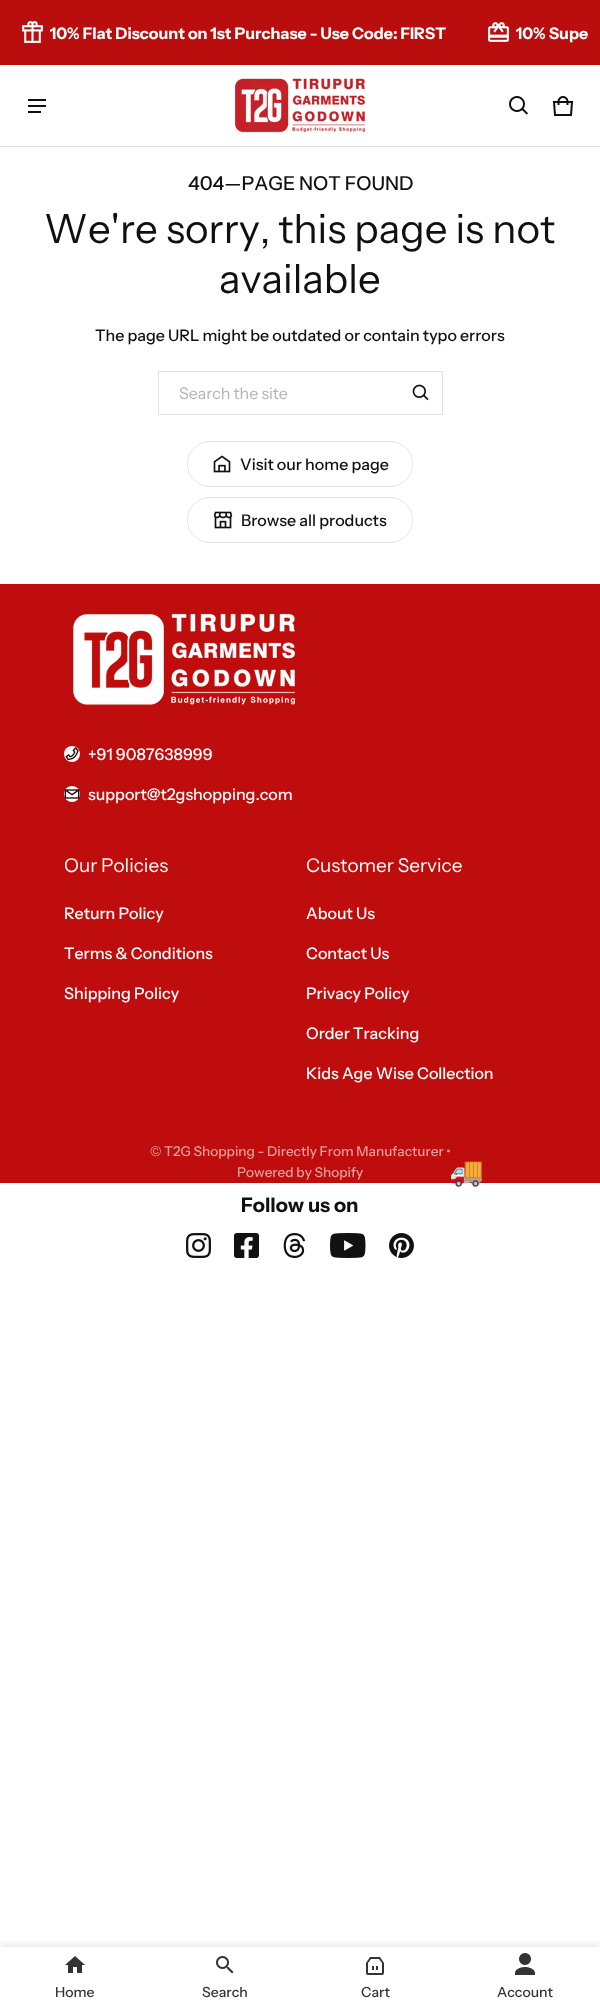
<svg xmlns="http://www.w3.org/2000/svg" width="600" height="2010" viewBox="0 0 600 2010">
  <style>*{font-kerning:none!important;font-variant-ligatures:none!important}</style>
  <defs>
    <linearGradient id="g1" gradientUnits="userSpaceOnUse" x1="445" y1="200" x2="155" y2="-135"><stop offset="1" stop-color="#ba0e0e"/><stop offset="1" stop-color="#000000"/></linearGradient>
    <clipPath id="clip1"><rect x="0" y="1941" width="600" height="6"/></clipPath>
    <filter id="blur1" x="-50%" y="-200%" width="200%" height="500%"><feGaussianBlur stdDeviation="5"/></filter>
  </defs>
  <rect width="100%" height="100%" fill="#ffffff"/>
  <rect x="0" y="0" width="600" height="65" fill="url(#g1)"/>
  <image x="22" y="21" width="21" height="22" href="img1.png"/>
  <text x="50" y="39" font-family="Instrument Sans" font-size="16" font-weight="bold" fill="#ffffff">10% Flat Discount on 1st Purchase - Use Code: FIRST</text>
  <image x="488" y="22" width="21" height="20" href="img2.png"/>
  <text x="516" y="39" font-family="Instrument Sans" font-size="16" font-weight="bold" fill="#ffffff">10% Supe</text>
  <rect x="0" y="146" width="600" height="1" fill="#e2e2e2"/>
  <rect x="28" y="99" width="18" height="2" fill="#101010"/>
  <rect x="28" y="105" width="18" height="2" fill="#101010"/>
  <rect x="28" y="111" width="13" height="2" fill="#101010"/>
  <image x="235" y="78" width="130" height="55" href="img3.png"/>
  <image x="509" y="96" width="19" height="19" href="img4.png"/>
  <image x="552" y="96" width="22" height="20" href="img5.png"/>
  <text x="188" y="190" font-family="Instrument Sans" font-size="19.25" font-weight="500" fill="#101010">404—PAGE NOT FOUND</text>
  <text x="44" y="243" font-family="Instrument Sans" font-size="40.3" fill="#101010">We're</text>
  <text x="166" y="243" font-family="Instrument Sans" font-size="40.3" fill="#101010">sorry, this page is not</text>
  <text x="219" y="293" font-family="Instrument Sans" font-size="40.3" fill="#101010">available</text>
  <text x="95" y="341" font-family="Instrument Sans" font-size="16" font-weight="500" fill="#101010">The page URL might be outdated or contain typo errors</text>
  <rect x="158.5" y="371.5" width="284" height="43" fill="none" stroke="#e2e2e2"/>
  <text x="179" y="399" font-family="Instrument Sans" font-size="16" fill="#b3b3b3">Search the site</text>
  <image x="412" y="384" width="17" height="17" href="img6.png"/>
  <rect x="187.5" y="441.5" width="225" height="45" rx="22.5" fill="none" stroke="#e2e2e2"/>
  <rect x="188" y="442" width="224" height="44" rx="22" fill="#ffffff"/>
  <image x="213" y="455" width="18" height="18" href="img7.png"/>
  <text x="240" y="470" font-family="Instrument Sans" font-size="16" font-weight="500" fill="#101010">Visit our home page</text>
  <rect x="187.5" y="497.5" width="225" height="45" rx="22.5" fill="none" stroke="#e2e2e2"/>
  <rect x="188" y="498" width="224" height="44" rx="22" fill="#ffffff"/>
  <image x="213" y="511" width="20" height="18" href="img8.png"/>
  <text x="241" y="526" font-family="Instrument Sans" font-size="16" font-weight="500" fill="#101010">Browse all products</text>
  <rect x="0" y="584" width="600" height="599" fill="#bf0c0c"/>
  <image x="73" y="613" width="223" height="92" href="img9.png"/>
  <circle cx="72" cy="754" r="8" fill="#fff8f8"/>
  <image x="65" y="747" width="14" height="13" href="img10.png"/>
  <text x="88" y="760" font-family="Instrument Sans" font-size="16" font-weight="500" fill="#ffffff">+91 9087638999</text>
  <circle cx="72" cy="794" r="8" fill="#fff8f8"/>
  <image x="64" y="789" width="16" height="10" href="img11.png"/>
  <text x="88" y="800" font-family="Instrument Sans" font-size="16" font-weight="500" fill="#ffffff">support@t2gshopping.com</text>
  <text x="64" y="872" font-family="Instrument Sans" font-size="19" fill="#ffffff">Our Policies</text>
  <text x="64" y="919" font-family="Instrument Sans" font-size="16" font-weight="500" fill="#ffffff">Return Policy</text>
  <text x="64" y="959" font-family="Instrument Sans" font-size="16" font-weight="500" fill="#ffffff">Terms &amp; Conditions</text>
  <text x="64" y="999" font-family="Instrument Sans" font-size="16" font-weight="500" fill="#ffffff">Shipping Policy</text>
  <text x="306" y="872" font-family="Instrument Sans" font-size="19" fill="#ffffff">Customer Service</text>
  <text x="306" y="919" font-family="Instrument Sans" font-size="16" font-weight="500" fill="#ffffff">About Us</text>
  <text x="306" y="959" font-family="Instrument Sans" font-size="16" font-weight="500" fill="#ffffff">Contact Us</text>
  <text x="306" y="999" font-family="Instrument Sans" font-size="16" font-weight="500" fill="#ffffff">Privacy Policy</text>
  <text x="306" y="1039" font-family="Instrument Sans" font-size="16" font-weight="500" fill="#ffffff">Order Tracking</text>
  <text x="306" y="1079" font-family="Instrument Sans" font-size="16" font-weight="500" fill="#ffffff">Kids Age Wise Collection</text>
  <text x="150" y="1156" font-family="Instrument Sans" font-size="13.6" font-weight="500" fill="#e59e9e">© T2G Shopping - Directly From Manufacturer •</text>
  <text x="237" y="1177" font-family="Instrument Sans" font-size="13.6" font-weight="500" fill="#e59e9e">Powered by Shopify</text>
  <text x="449" y="1181" font-family="Noto Color Emoji" font-size="28" font-weight="bold" fill="#c72a2a">🚚</text>
  <text x="241" y="1212" font-family="Instrument Sans" font-size="20" font-weight="bold" fill="#101010">Follow us on</text>
  <image x="186" y="1233" width="25" height="25" href="img12.png"/>
  <image x="234" y="1233" width="25" height="25" href="img13.png"/>
  <image x="283" y="1233" width="23" height="25" href="img14.png"/>
  <image x="330" y="1233" width="36" height="25" href="img15.png"/>
  <image x="389" y="1233" width="25" height="25" href="img16.png"/>
  <g clip-path="url(#clip1)">
    <rect x="0" y="1945" width="600" height="63" fill="#000000" fill-opacity="0.1" filter="url(#blur1)"/>
  </g>
  <image x="65" y="1956" width="20" height="17" href="img17.png"/>
  <text x="55" y="1997" font-family="Instrument Sans" font-size="14" font-weight="500" fill="#333333">Home</text>
  <image x="216" y="1956" width="18" height="18" href="img18.png"/>
  <text x="202" y="1997" font-family="Instrument Sans" font-size="14" font-weight="500" fill="#333333">Search</text>
  <image x="366" y="1957" width="18" height="18" href="img19.png"/>
  <text x="361" y="1997" font-family="Instrument Sans" font-size="14" font-weight="500" fill="#333333">Cart</text>
  <image x="515" y="1953" width="20" height="22" href="img20.png"/>
  <text x="497" y="1997" font-family="Instrument Sans" font-size="14" font-weight="500" fill="#333333">Account</text>
</svg>
